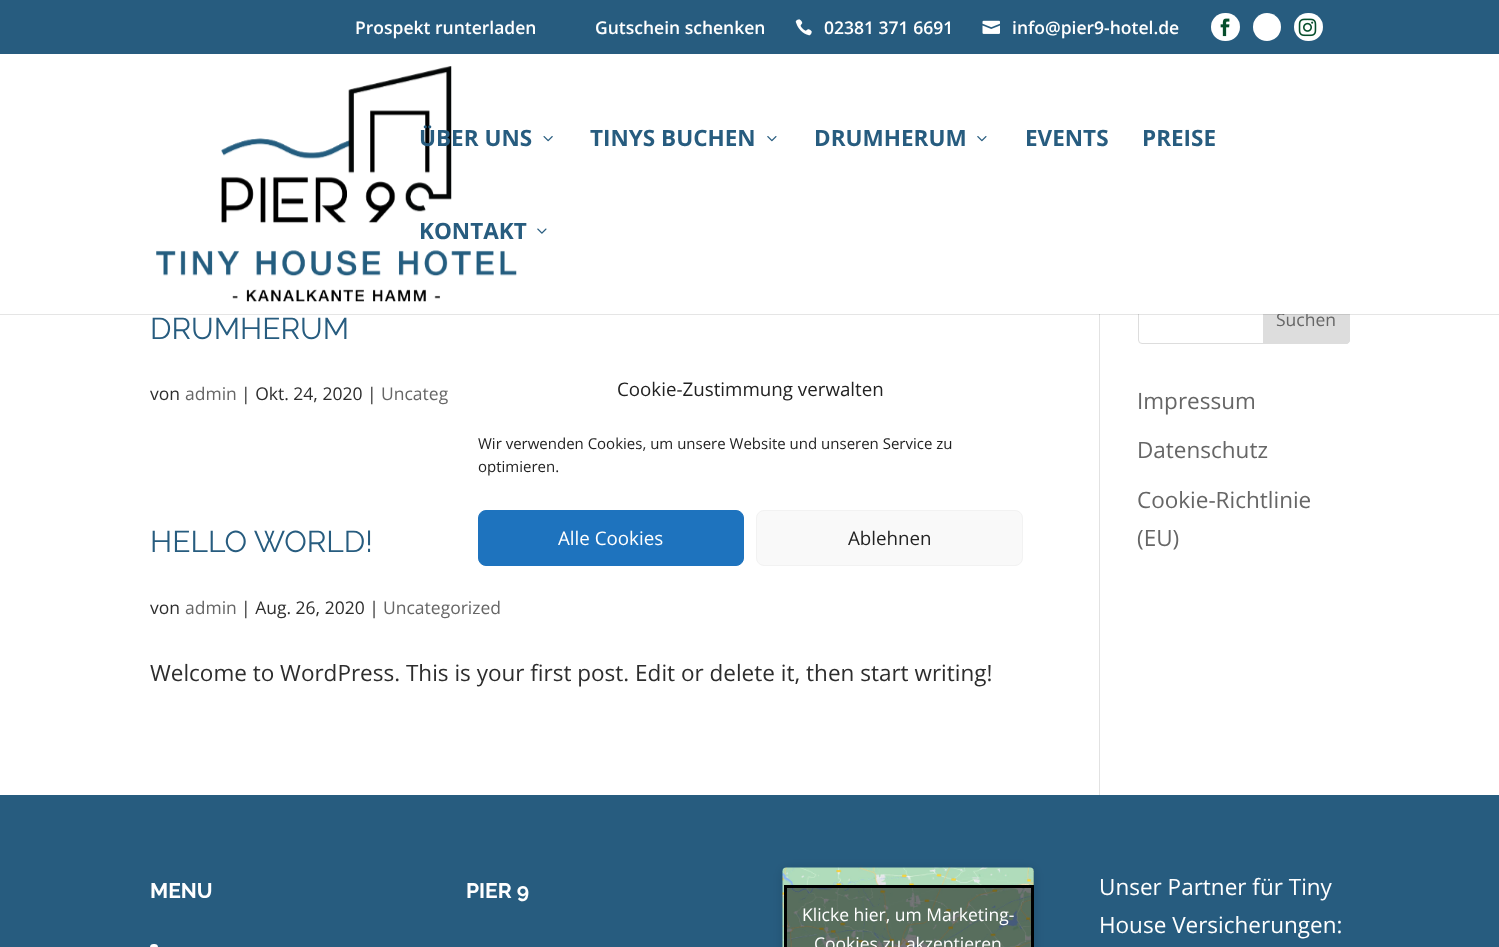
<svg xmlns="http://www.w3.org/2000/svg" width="1499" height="947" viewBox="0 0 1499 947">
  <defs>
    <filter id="blur1" x="-50%" y="-200%" width="200%" height="500%"><feGaussianBlur stdDeviation="6"/></filter>
    <filter id="blur2" x="-50%" y="-200%" width="200%" height="500%"><feGaussianBlur stdDeviation="0.5"/></filter>
  </defs>
  <rect width="100%" height="100%" fill="#ffffff"/>
  <rect x="0" y="0" width="1499" height="54" fill="#275c7f"/>
  <text x="355" y="34" font-family="Open Sans" font-size="17.5" font-weight="600" fill="#ffffff">Prospekt runterladen</text>
  <text x="595" y="34" font-family="Open Sans" font-size="17.5" font-weight="600" fill="#ffffff">Gutschein schenken</text>
  <image x="795" y="19" width="17" height="17" href="img1.png"/>
  <text x="824" y="34" font-family="Open Sans" font-size="17.5" font-weight="600" fill="#ffffff">02381 371 6691</text>
  <image x="982" y="20" width="18" height="14" href="img2.png"/>
  <text x="1012" y="34" font-family="Open Sans" font-size="17.5" font-weight="600" fill="#ffffff">info@pier9-hotel.de</text>
  <rect x="1211" y="13" width="29" height="28" rx="14" fill="#ffffff"/>
  <image x="1220" y="18" width="10" height="19" href="img3.png"/>
  <circle cx="1267" cy="27" r="14" fill="#ffffff"/>
  <rect x="1294" y="13" width="29" height="28" rx="14" fill="#ffffff"/>
  <image x="1298" y="18" width="19" height="19" href="img4.png"/>
  <rect x="1138.5" y="294.5" width="211" height="49" rx="3.5" fill="none" stroke="#dddddd"/>
  <path d="M1263.5 294.5H1346C1348 294.5 1349.5 296 1349.5 298V340C1349.5 342 1348 343.5 1346 343.5H1263.5Z" fill="#dddddd" stroke="#dddddd"/>
  <rect x="1099" y="314" width="1" height="481" fill="#e2e2e2"/>
  <rect x="0" y="314" width="1499" height="1" fill="#000000" fill-opacity="0.1"/>
  <text x="1276" y="326" font-family="Open Sans" font-size="17.5" fill="#666666">Suchen</text>
  <rect x="1138" y="294" width="212" height="20" fill="#ffffff"/>
  <image x="156" y="66" width="361" height="236" href="img5.png"/>
  <text x="419" y="146" font-family="Open Sans" font-size="22.5" font-weight="bold" fill="#275c7f">ÜBER UNS</text>
  <image x="543" y="136" width="10" height="6" href="img6.png"/>
  <text x="590" y="146" font-family="Open Sans" font-size="22.5" font-weight="bold" fill="#275c7f">TINYS BUCHEN</text>
  <image x="767" y="136" width="10" height="6" href="img7.png"/>
  <text x="814" y="146" font-family="Open Sans" font-size="22.5" font-weight="bold" fill="#275c7f">DRUMHERUM</text>
  <image x="977" y="136" width="10" height="6" href="img7.png"/>
  <text x="1025" y="146" font-family="Open Sans" font-size="22.5" font-weight="bold" fill="#275c7f">EVENTS</text>
  <text x="1142" y="146" font-family="Open Sans" font-size="22.5" font-weight="bold" fill="#275c7f">PREISE</text>
  <text x="419" y="239" font-family="Open Sans" font-size="22.5" font-weight="bold" fill="#275c7f">KONTAKT</text>
  <image x="537" y="228" width="10" height="6" href="img8.png"/>
  <text x="150" y="339" font-family="Raleway" font-size="30" font-weight="100" fill="#275c7f">DRUMHERUM</text>
  <text x="150" y="400" font-family="Open Sans" font-size="17.5" fill="#2d2d2d">von</text>
  <text x="185" y="400" font-family="Open Sans" font-size="17.5" fill="#666666">admin</text>
  <text x="241" y="400" font-family="Open Sans" font-size="17.5" fill="#2d2d2d">| Okt. 24, 2020 |</text>
  <text x="381" y="400" font-family="Open Sans" font-size="17.5" fill="#666666">Uncateg</text>
  <text x="150" y="552" font-family="Raleway" font-size="30" font-weight="100" fill="#275c7f">HELLO WORLD!</text>
  <text x="150" y="614" font-family="Open Sans" font-size="17.5" fill="#2d2d2d">von</text>
  <text x="185" y="614" font-family="Open Sans" font-size="17.5" fill="#666666">admin</text>
  <text x="241" y="614" font-family="Open Sans" font-size="17.5" fill="#2d2d2d">| Aug. 26, 2020 |</text>
  <text x="383" y="614" font-family="Open Sans" font-size="17.5" fill="#666666">Uncategorized</text>
  <text x="150" y="681" font-family="Open Sans" font-size="22.5" fill="#2d2d2d">Welcome to WordPress. This is your first post. Edit or delete it, then start writing!</text>
  <text x="1137" y="409" font-family="Open Sans" font-size="22.5" fill="#666666">Impressum</text>
  <text x="1137" y="458" font-family="Open Sans" font-size="22.5" fill="#666666">Datenschutz</text>
  <text x="1137" y="508" font-family="Open Sans" font-size="22.5" fill="#666666">Cookie-Richtlinie</text>
  <text x="1137" y="546" font-family="Open Sans" font-size="22.5" fill="#666666">(EU)</text>
  <rect x="0" y="795" width="1499" height="152" fill="#275c7f"/>
  <text x="150" y="898" font-family="'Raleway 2'" font-size="21" font-weight="100" fill="#ffffff">MENU</text>
  <rect x="150" y="944" width="8" height="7" rx="3.5" fill="#ffffff"/>
  <text x="466" y="898" font-family="'Raleway 2'" font-size="21" font-weight="100" fill="#ffffff">PIER 9</text>
  <text x="1099" y="895" font-family="Open Sans" font-size="22.5" fill="#ffffff">Unser Partner für Tiny</text>
  <text x="1099" y="933" font-family="Open Sans" font-size="22.5" fill="#ffffff">House Versicherungen:</text>
  <rect x="783" y="869" width="251" height="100" rx="4" fill="#000000" fill-opacity="0.15" filter="url(#blur1)"/>
  <rect x="783" y="868" width="251" height="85" rx="4" fill="#000000" fill-opacity="0.5" filter="url(#blur2)"/>
  <image x="782" y="867" width="252" height="80" href="img9.png"/>
  <rect x="785.5" y="886.5" width="247" height="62" fill="#000000" fill-opacity="0.5" stroke="#000000" stroke-width="3"/>
  <text x="802" y="921" font-family="Open Sans" font-size="17.5" fill="#ffffff">Klicke hier, um Marketing-</text>
  <text x="814" y="950" font-family="Open Sans" font-size="17.5" fill="#ffffff">Cookies zu akzeptieren</text>
  <text x="617" y="396" font-family="Open Sans" font-size="18.75" fill="#222222">Cookie-Zustimmung verwalten</text>
  <text x="478" y="449" font-family="Open Sans" font-size="15" fill="#222222">Wir verwenden Cookies, um unsere Website und unseren Service zu</text>
  <text x="478" y="472" font-family="Open Sans" font-size="15" fill="#222222">optimieren.</text>
  <rect x="478.5" y="510.5" width="265" height="55" rx="7.5" fill="#1e73be" stroke="#1e73be"/>
  <text x="558" y="545" font-family="Open Sans" font-size="18.75" fill="#ffffff">Alle Cookies</text>
  <rect x="756.5" y="510.5" width="266" height="55" rx="7.5" fill="#f9f9f9" stroke="#f2f2f2"/>
  <text x="848" y="545" font-family="Open Sans" font-size="18.75" fill="#222222">Ablehnen</text>
</svg>
